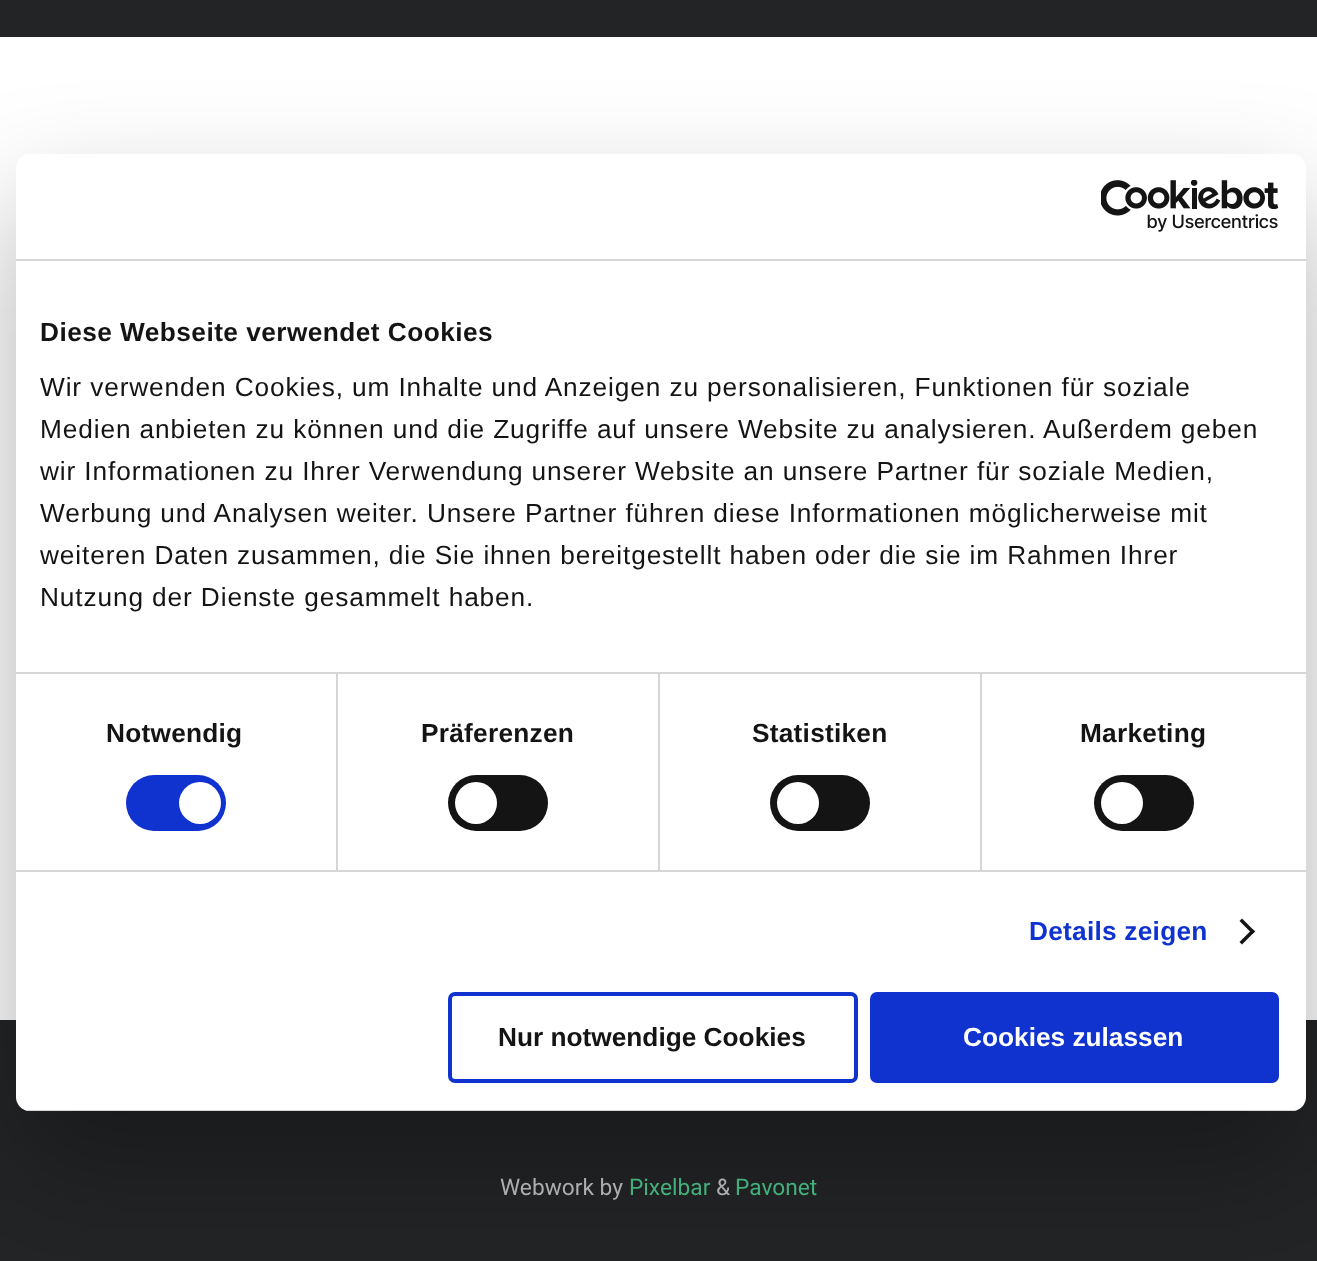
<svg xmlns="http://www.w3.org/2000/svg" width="1317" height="1261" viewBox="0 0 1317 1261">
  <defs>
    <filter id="blur1" x="-50%" y="-200%" width="200%" height="500%"><feGaussianBlur stdDeviation="59.5"/></filter>
    <clipPath id="clip1"><rect x="16" y="154" width="1290" height="957" rx="14"/></clipPath>
  </defs>
  <rect width="100%" height="100%" fill="#232426"/>
  <rect x="0" y="37" width="1317" height="983" fill="#ffffff"/>
  <rect x="16" y="210" width="1290" height="957" rx="14" fill="#000000" fill-opacity="0.3" filter="url(#blur1)"/>
  <rect x="16" y="154" width="1290" height="957" rx="14" fill="#ffffff"/>
  <rect x="16" y="259" width="1290" height="2" fill="#d6d6d6"/>
  <image x="1101" y="180" width="178" height="52" href="img1.png"/>
  <rect x="16" y="672" width="1290" height="2" fill="#d6d6d6"/>
  <text x="40" y="341" font-family="Liberation Sans" font-size="26.25" font-weight="bold" letter-spacing="0.45" fill="#141414">Diese Webseite verwendet Cookies</text>
  <text x="40" y="396" font-family="Liberation Sans" font-size="26.25" letter-spacing="0.88" fill="#141414">Wir verwenden Cookies, um Inhalte und Anzeigen zu personalisieren, Funktionen für soziale</text>
  <text x="40" y="438" font-family="Liberation Sans" font-size="26.25" letter-spacing="0.88" fill="#141414">Medien anbieten zu können und die Zugriffe auf unsere Website zu analysieren. Außerdem geben</text>
  <text x="40" y="480" font-family="Liberation Sans" font-size="26.25" letter-spacing="0.88" fill="#141414">wir Informationen zu Ihrer Verwendung unserer Website an unsere Partner für soziale Medien,</text>
  <text x="40" y="522" font-family="Liberation Sans" font-size="26.25" letter-spacing="0.88" fill="#141414">Werbung und Analysen weiter. Unsere Partner führen diese Informationen möglicherweise mit</text>
  <text x="40" y="564" font-family="Liberation Sans" font-size="26.25" letter-spacing="0.88" fill="#141414">weiteren Daten zusammen, die Sie ihnen bereitgestellt haben oder die sie im Rahmen Ihrer</text>
  <text x="40" y="606" font-family="Liberation Sans" font-size="26.25" letter-spacing="0.88" fill="#141414">Nutzung der Dienste gesammelt haben.</text>
  <rect x="16" y="870" width="1290" height="2" fill="#d6d6d6"/>
  <rect x="336" y="674" width="2" height="196" fill="#d6d6d6"/>
  <text x="106" y="742" font-family="Liberation Sans" font-size="26.25" font-weight="bold" letter-spacing="0.25" fill="#141414">Notwendig</text>
  <rect x="126" y="775" width="100" height="56" rx="28" fill="#1032cf"/>
  <circle cx="200" cy="803" r="21" fill="#ffffff"/>
  <rect x="658" y="674" width="2" height="196" fill="#d6d6d6"/>
  <text x="421" y="742" font-family="Liberation Sans" font-size="26.25" font-weight="bold" letter-spacing="0.25" fill="#141414">Präferenzen</text>
  <rect x="448" y="775" width="100" height="56" rx="28" fill="#141414"/>
  <circle cx="476" cy="803" r="21" fill="#ffffff"/>
  <rect x="980" y="674" width="2" height="196" fill="#d6d6d6"/>
  <text x="752" y="742" font-family="Liberation Sans" font-size="26.25" font-weight="bold" letter-spacing="0.25" fill="#141414">Statistiken</text>
  <rect x="770" y="775" width="100" height="56" rx="28" fill="#141414"/>
  <circle cx="798" cy="803" r="21" fill="#ffffff"/>
  <text x="1080" y="742" font-family="Liberation Sans" font-size="26.25" font-weight="bold" letter-spacing="0.25" fill="#141414">Marketing</text>
  <rect x="1094" y="775" width="100" height="56" rx="28" fill="#141414"/>
  <circle cx="1122" cy="803" r="21" fill="#ffffff"/>
  <text x="1029" y="940" font-family="Liberation Sans" font-size="26.25" font-weight="bold" letter-spacing="0.25" fill="#1032cf">Details zeigen</text>
  <path d="M1242 918.5L1255 931.5L1252.5 934L1239.5 921Z" fill="#141414"/>
  <path d="M1252.5 929L1255 931.5L1242 944.5L1239.5 942Z" fill="#141414"/>
  <g clip-path="url(#clip1)">
    <rect x="25" y="1110" width="1272" height="1" fill="#d6d6d6"/>
  </g>
  <rect x="450" y="994" width="406" height="87" rx="5" fill="none" stroke="#1032cf" stroke-width="4"/>
  <text x="498" y="1046" font-family="Liberation Sans" font-size="26.25" font-weight="bold" fill="#141414">Nur notwendige Cookies</text>
  <rect x="872" y="994" width="405" height="87" rx="5" fill="#1032cf" stroke="#1032cf" stroke-width="4"/>
  <text x="963" y="1046" font-family="Liberation Sans" font-size="26.25" font-weight="bold" fill="#ffffff">Cookies zulassen</text>
  <text x="500" y="1195" font-family="Roboto" font-size="22.75" fill="#adadad">Webwork by</text>
  <text x="629" y="1195" font-family="Roboto" font-size="22.75" fill="#43b07c">Pixelbar</text>
  <text x="716" y="1195" font-family="Roboto" font-size="22.75" fill="#adadad">&amp;</text>
  <text x="735" y="1195" font-family="Roboto" font-size="22.75" fill="#43b07c">Pavonet</text>
</svg>
